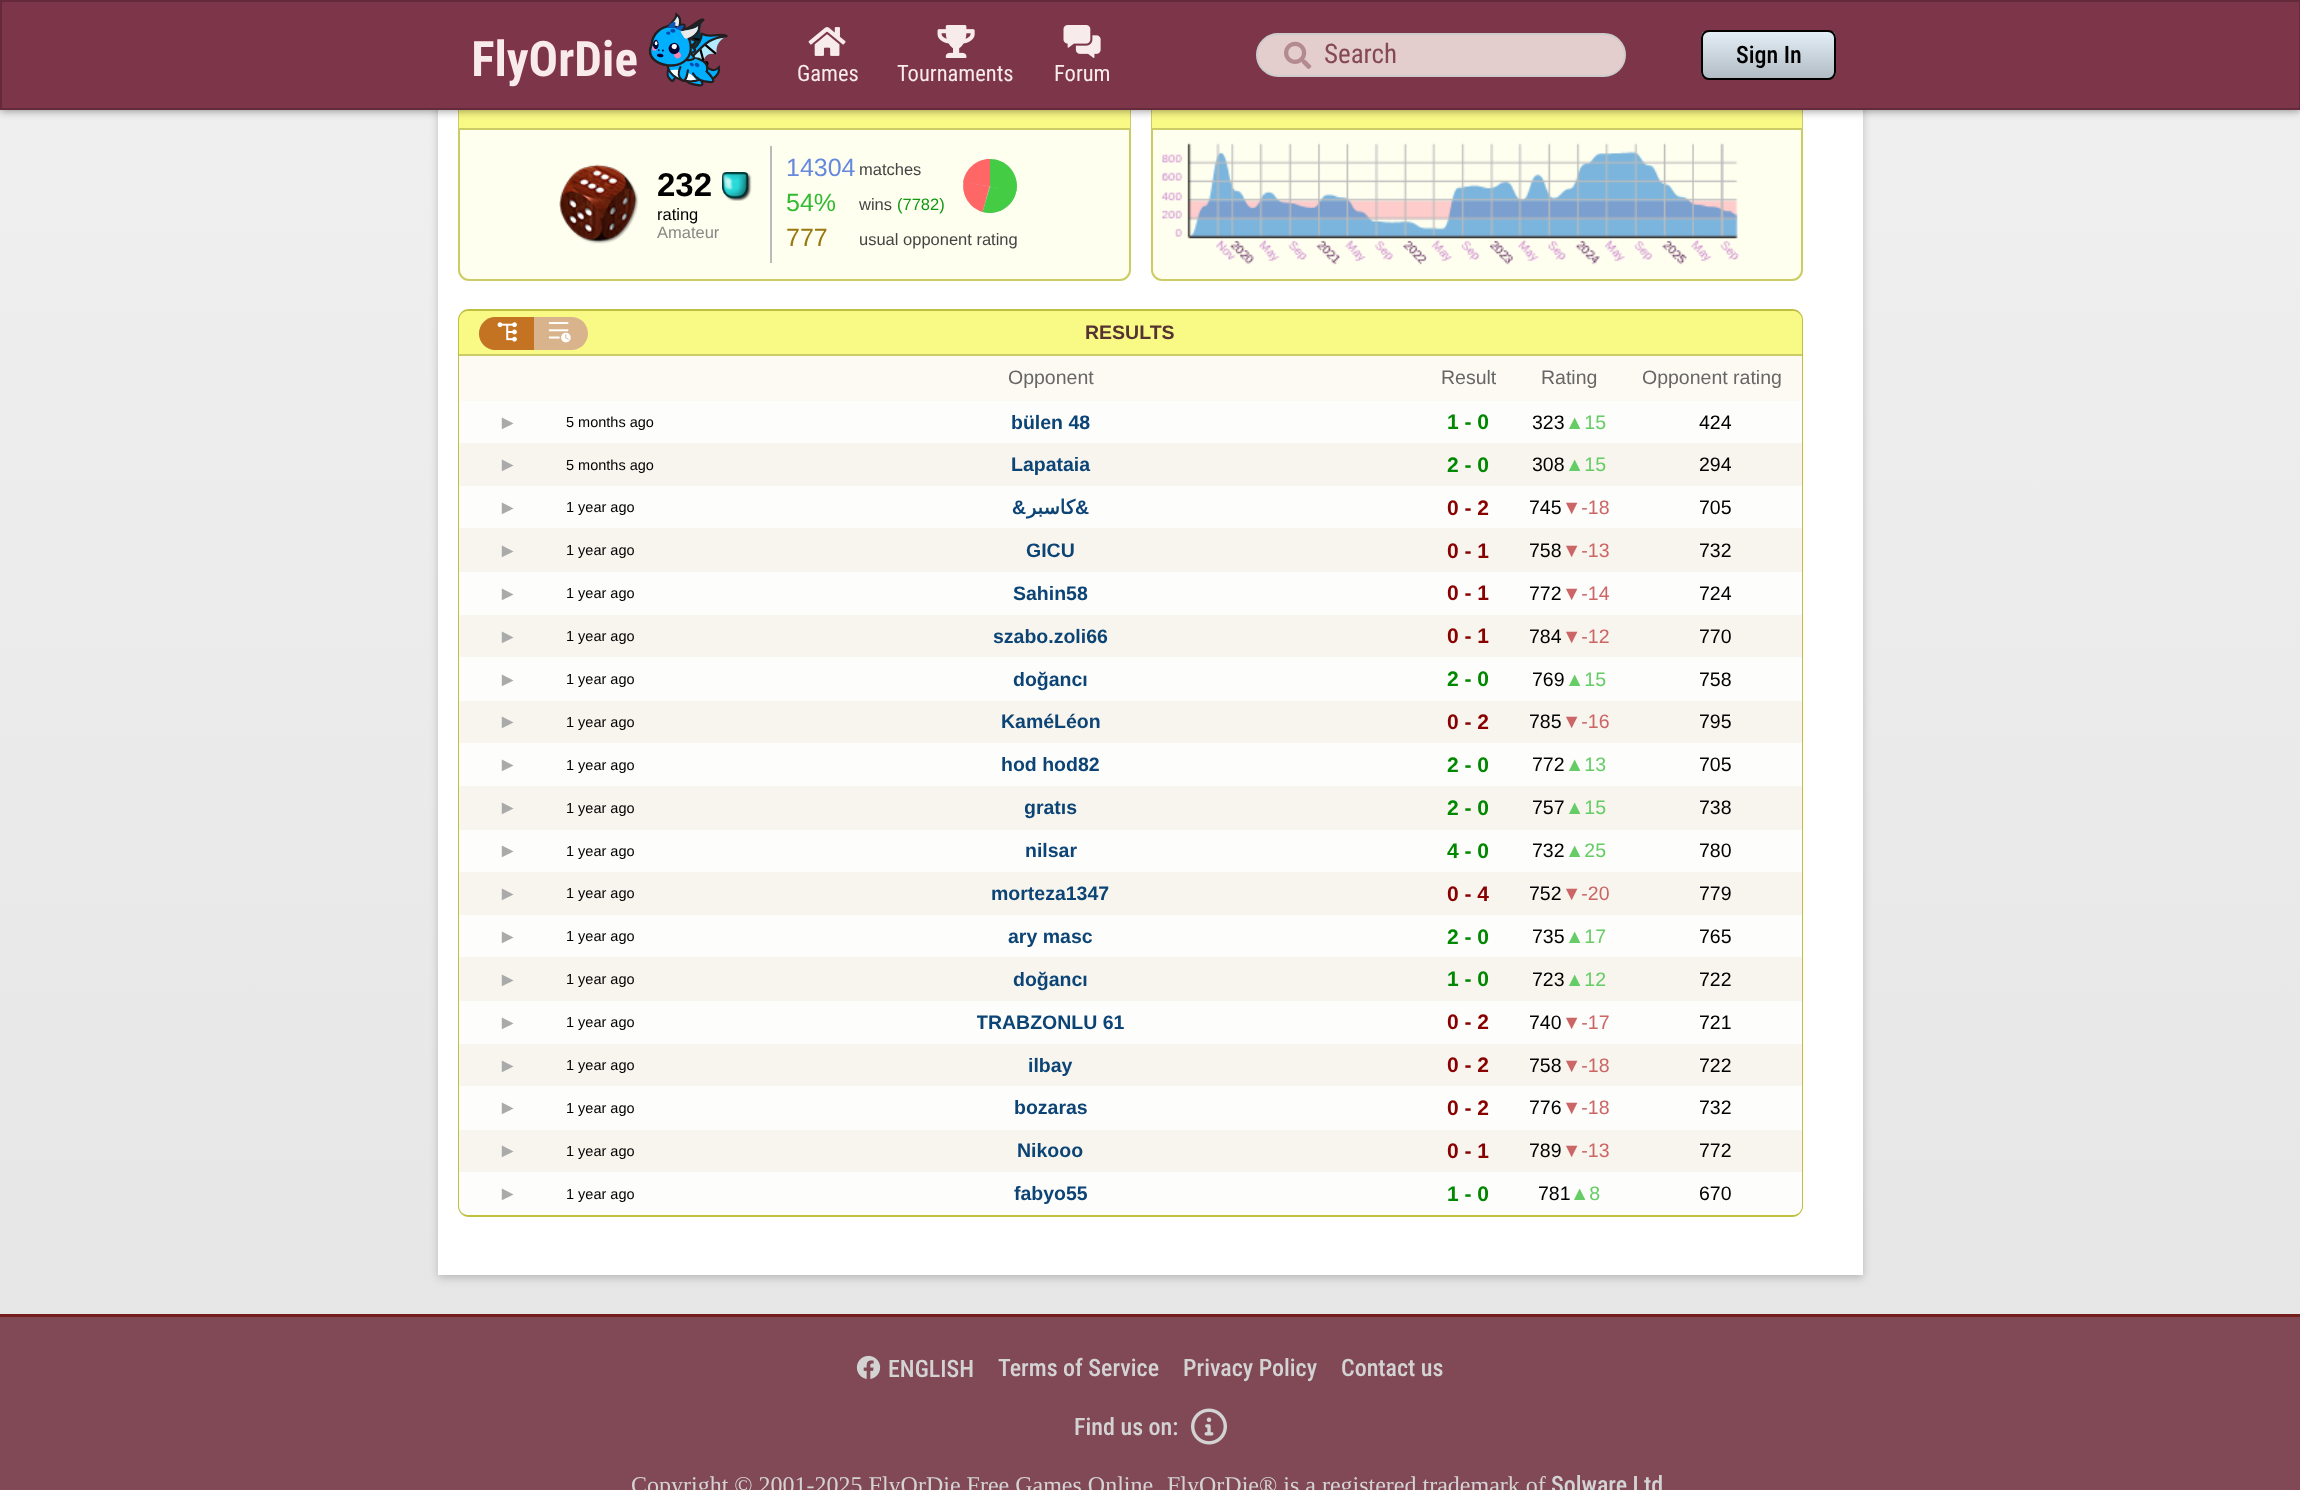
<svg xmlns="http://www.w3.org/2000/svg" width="2300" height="1490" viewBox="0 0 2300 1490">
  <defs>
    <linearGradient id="g1" gradientUnits="userSpaceOnUse" x1="1151" y1="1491" x2="1151" y2="0"><stop offset="0" stop-color="#e5e5e5"/><stop offset="1" stop-color="#f0f0f0"/></linearGradient>
    <filter id="blur1" x="-50%" y="-200%" width="200%" height="500%"><feGaussianBlur stdDeviation="4.5"/></filter>
    <filter id="blur2" x="-50%" y="-200%" width="200%" height="500%"><feGaussianBlur stdDeviation="4"/></filter>
    <clipPath id="clip1"><rect x="1701" y="30" width="135" height="50" rx="8"/></clipPath>
    <linearGradient id="g2" gradientUnits="userSpaceOnUse" x1="1769" y1="31" x2="1769" y2="78"><stop offset="0" stop-color="#ffffff"/><stop offset="1" stop-color="#bdbdbd"/></linearGradient>
    <clipPath id="clip2"><rect x="1025" y="797" width="52" height="22"/></clipPath>
    <clipPath id="clip3"><rect x="977" y="1011" width="148" height="23"/></clipPath>
  </defs>
  <rect width="100%" height="100%" fill="#ffffff"/>
  <rect x="0" y="110" width="2300" height="1204" fill="url(#g1)"/>
  <rect x="438" y="-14" width="1425" height="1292" fill="#000000" fill-opacity="0.2" filter="url(#blur1)"/>
  <rect x="438" y="110" width="1425" height="1165" fill="#ffffff"/>
  <rect x="459" y="84" width="671" height="196" rx="10" fill="#fffff0" stroke="#cccc66" stroke-width="2"/>
  <rect x="459" y="110" width="671" height="18" fill="#f9f986"/>
  <rect x="1152" y="84" width="650" height="196" rx="10" fill="#fffff0" stroke="#cccc66" stroke-width="2"/>
  <rect x="1152" y="110" width="650" height="18" fill="#f9f986"/>
  <rect x="0" y="2" width="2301" height="109" fill="#000000" fill-opacity="0.4" filter="url(#blur2)"/>
  <rect x="1" y="1" width="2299" height="108" fill="#7d354a" stroke="#642a3b" stroke-width="2"/>
  <image x="474" y="12" width="254" height="75" href="img1.png"/>
  <rect x="1257" y="34" width="368" height="42" rx="21" fill="#e4cdcd" stroke="#cccccc" stroke-width="2"/>
  <image x="1284" y="41" width="28" height="28" href="img2.png"/>
  <text x="1324" y="63" font-family="Roboto Condensed" font-size="27" fill="#844857">Search</text>
  <g clip-path="url(#clip1)">
    <rect x="1701" y="32" width="135" height="46" fill="url(#g2)"/>
  </g>
  <rect x="1702" y="31" width="133" height="48" rx="7" fill="#8ab9db" fill-opacity="0.23" stroke="#000000" stroke-width="2"/>
  <text x="1736" y="63" font-family="Roboto Condensed" font-size="24" font-weight="500" fill="#000000">Sign In</text>
  <image x="808" y="27" width="38" height="29" href="img3.png"/>
  <text x="797" y="81" font-family="Roboto Condensed" font-size="22.5" fill="#f8ebeb">Games</text>
  <image x="937" y="25" width="38" height="33" href="img4.png"/>
  <text x="897" y="81" font-family="Roboto Condensed" font-size="22.5" fill="#f8ebeb">Tournaments</text>
  <image x="1063" y="25" width="38" height="33" href="img5.png"/>
  <text x="1054" y="81" font-family="Roboto Condensed" font-size="22.5" fill="#f8ebeb">Forum</text>
  <rect x="459" y="128" width="671" height="2" fill="#cccc66"/>
  <image x="559" y="164" width="80" height="80" href="img6.png"/>
  <text x="657" y="196" font-family="Liberation Sans" font-size="33" font-weight="bold" fill="#000000">232</text>
  <image x="722" y="172" width="30" height="29" href="img7.png"/>
  <text x="657" y="220" font-family="Liberation Sans" font-size="16.5" fill="#000000">rating</text>
  <text x="657" y="238" font-family="Liberation Sans" font-size="16.5" fill="#888888">Amateur</text>
  <rect x="770" y="146" width="2" height="117" fill="#bbbbbb"/>
  <text x="786" y="176" font-family="Liberation Sans" font-size="25" fill="#6688dd">14304</text>
  <text x="859" y="175" font-family="Liberation Sans" font-size="16.5" fill="#444444">matches</text>
  <circle cx="990" cy="186" r="27" fill="#dddddd"/>
  <path d="M990 159C1007 159 1019.5 174.5 1016.5 191L989.5 186.5L989 159Z" fill="#44cc44"/>
  <path d="M1016.5 190C1014.5 206 997.5 216.5 982.5 212L990 186.5Z" fill="#44cc44"/>
  <path d="M986.5 197.5L982.5 212H982Z" fill="#bbbbbb"/>
  <path d="M989.5 186.5L982.5 212C969.5 208 961.5 195 963.5 182Z" fill="#ff6666"/>
  <path d="M990 159V186.5L963 182.5C965 169.5 976 159 990 159Z" fill="#ff6666"/>
  <text x="786" y="211" font-family="Liberation Sans" font-size="25" fill="#33bb33">54%</text>
  <text x="859" y="210" font-family="Liberation Sans" font-size="16.5" fill="#444444">wins</text>
  <text x="897" y="210" font-family="Liberation Sans" font-size="16.5" fill="#119911">(7782)</text>
  <text x="786" y="246" font-family="Liberation Sans" font-size="25" fill="#997711">777</text>
  <text x="859" y="245" font-family="Liberation Sans" font-size="16.5" fill="#444444">usual opponent rating</text>
  <rect x="1152" y="128" width="650" height="2" fill="#cccc66"/>
  <image x="1161" y="142" width="578" height="123" href="img8.png"/>
  <rect x="459" y="310" width="1343" height="906" rx="10" fill="none" stroke="#bfbf40" stroke-width="2"/>
  <path d="M468 311H1793C1798 311 1802 315 1802 320V356H459V320C459 315 463 311 468 311Z" fill="#f9f986"/>
  <rect x="459" y="354" width="1343" height="2" fill="#cccc66"/>
  <rect x="479" y="317" width="109" height="33" rx="16.5" fill="#d9b38c"/>
  <path d="M495.5 317H534V350H495.5C486.5 350 479 342.5 479 333.5C479 324.5 486.5 317 495.5 317Z" fill="#c37322"/>
  <image x="497" y="322" width="20" height="20" href="img9.png"/>
  <image x="548" y="322" width="23" height="21" href="img10.png"/>
  <text x="1085" y="339" font-family="Liberation Sans" font-size="19.5" font-weight="bold" fill="#553333">RESULTS</text>
  <rect x="459" y="356" width="1343" height="45" fill="#fcfaf3"/>
  <text x="1008" y="384" font-family="Liberation Sans" font-size="19.5" fill="#666666">Opponent</text>
  <text x="1441" y="384" font-family="Liberation Sans" font-size="19.5" fill="#666666">Result</text>
  <text x="1541" y="384" font-family="Liberation Sans" font-size="19.5" fill="#666666">Rating</text>
  <text x="1642" y="384" font-family="Liberation Sans" font-size="19.5" fill="#666666">Opponent rating</text>
  <rect x="459" y="401" width="1343" height="42" fill="#fdfdfb"/>
  <text x="498" y="429" font-family="Liberation Sans" font-size="19.5" fill="#aaaaaa">►</text>
  <text x="566" y="427" font-family="Liberation Sans" font-size="14.5" fill="#000000">5 months ago</text>
  <text x="1011" y="429" font-family="Liberation Sans" font-size="19.5" font-weight="bold" fill="#0c4476">bülen 48</text>
  <text x="1447" y="429" font-family="Liberation Sans" font-size="21" font-weight="bold" fill="#008800">1 - 0</text>
  <text x="1532" y="429" font-family="Liberation Sans" font-size="19.5" fill="#000000">323</text>
  <text x="1565" y="429" font-family="Liberation Sans" font-size="19.5" fill="#66cc66">▲15</text>
  <text x="1699" y="429" font-family="Liberation Sans" font-size="19.5" fill="#000000">424</text>
  <rect x="459" y="443" width="1343" height="43" fill="#f7f5ed"/>
  <text x="498" y="471" font-family="Liberation Sans" font-size="19.5" fill="#aaaaaa">►</text>
  <text x="566" y="470" font-family="Liberation Sans" font-size="14.5" fill="#000000">5 months ago</text>
  <text x="1011" y="471" font-family="Liberation Sans" font-size="19.5" font-weight="bold" fill="#0c4476">Lapataia</text>
  <text x="1447" y="472" font-family="Liberation Sans" font-size="21" font-weight="bold" fill="#008800">2 - 0</text>
  <text x="1532" y="471" font-family="Liberation Sans" font-size="19.5" fill="#000000">308</text>
  <text x="1565" y="471" font-family="Liberation Sans" font-size="19.5" fill="#66cc66">▲15</text>
  <text x="1699" y="471" font-family="Liberation Sans" font-size="19.5" fill="#000000">294</text>
  <rect x="459" y="486" width="1343" height="42" fill="#fdfdfb"/>
  <text x="498" y="514" font-family="Liberation Sans" font-size="19.5" fill="#aaaaaa">►</text>
  <text x="566" y="512" font-family="Liberation Sans" font-size="14.5" fill="#000000">1 year ago</text>
  <text x="1012" y="514" font-family="Liberation Sans" font-size="19.5" font-weight="bold" fill="#0c4476">&amp;</text>
  <text x="1075" y="514" font-family="DejaVu Sans" font-size="19.5" font-weight="bold" direction="rtl" fill="#0c4476">كاسبر</text>
  <text x="1075" y="514" font-family="Liberation Sans" font-size="19.5" font-weight="bold" fill="#0c4476">&amp;</text>
  <text x="1447" y="515" font-family="Liberation Sans" font-size="21" font-weight="bold" fill="#880000">0 - 2</text>
  <text x="1529" y="514" font-family="Liberation Sans" font-size="19.5" fill="#000000">745</text>
  <text x="1562" y="514" font-family="Liberation Sans" font-size="19.5" fill="#cc6666">▼-18</text>
  <text x="1699" y="514" font-family="Liberation Sans" font-size="19.5" fill="#000000">705</text>
  <rect x="459" y="528" width="1343" height="44" fill="#f7f5ed"/>
  <text x="498" y="557" font-family="Liberation Sans" font-size="19.5" fill="#aaaaaa">►</text>
  <text x="566" y="555" font-family="Liberation Sans" font-size="14.5" fill="#000000">1 year ago</text>
  <text x="1026" y="557" font-family="Liberation Sans" font-size="19.5" font-weight="bold" fill="#0c4476">GICU</text>
  <text x="1447" y="558" font-family="Liberation Sans" font-size="21" font-weight="bold" fill="#880000">0 - 1</text>
  <text x="1529" y="557" font-family="Liberation Sans" font-size="19.5" fill="#000000">758</text>
  <text x="1562" y="557" font-family="Liberation Sans" font-size="19.5" fill="#cc6666">▼-13</text>
  <text x="1699" y="557" font-family="Liberation Sans" font-size="19.5" fill="#000000">732</text>
  <rect x="459" y="572" width="1343" height="43" fill="#fdfdfb"/>
  <text x="498" y="600" font-family="Liberation Sans" font-size="19.5" fill="#aaaaaa">►</text>
  <text x="566" y="598" font-family="Liberation Sans" font-size="14.5" fill="#000000">1 year ago</text>
  <text x="1013" y="600" font-family="Liberation Sans" font-size="19.5" font-weight="bold" fill="#0c4476">Sahin58</text>
  <text x="1447" y="600" font-family="Liberation Sans" font-size="21" font-weight="bold" fill="#880000">0 - 1</text>
  <text x="1529" y="600" font-family="Liberation Sans" font-size="19.5" fill="#000000">772</text>
  <text x="1562" y="600" font-family="Liberation Sans" font-size="19.5" fill="#cc6666">▼-14</text>
  <text x="1699" y="600" font-family="Liberation Sans" font-size="19.5" fill="#000000">724</text>
  <rect x="459" y="615" width="1343" height="42" fill="#f7f5ed"/>
  <text x="498" y="643" font-family="Liberation Sans" font-size="19.5" fill="#aaaaaa">►</text>
  <text x="566" y="641" font-family="Liberation Sans" font-size="14.5" fill="#000000">1 year ago</text>
  <text x="993" y="643" font-family="Liberation Sans" font-size="19.5" font-weight="bold" fill="#0c4476">szabo.zoli66</text>
  <text x="1447" y="643" font-family="Liberation Sans" font-size="21" font-weight="bold" fill="#880000">0 - 1</text>
  <text x="1529" y="643" font-family="Liberation Sans" font-size="19.5" fill="#000000">784</text>
  <text x="1562" y="643" font-family="Liberation Sans" font-size="19.5" fill="#cc6666">▼-12</text>
  <text x="1699" y="643" font-family="Liberation Sans" font-size="19.5" fill="#000000">770</text>
  <rect x="459" y="657" width="1343" height="44" fill="#fdfdfb"/>
  <text x="498" y="686" font-family="Liberation Sans" font-size="19.5" fill="#aaaaaa">►</text>
  <text x="566" y="684" font-family="Liberation Sans" font-size="14.5" fill="#000000">1 year ago</text>
  <text x="1013" y="686" font-family="Liberation Sans" font-size="19.5" font-weight="bold" fill="#0c4476">doğancı</text>
  <text x="1447" y="686" font-family="Liberation Sans" font-size="21" font-weight="bold" fill="#008800">2 - 0</text>
  <text x="1532" y="686" font-family="Liberation Sans" font-size="19.5" fill="#000000">769</text>
  <text x="1565" y="686" font-family="Liberation Sans" font-size="19.5" fill="#66cc66">▲15</text>
  <text x="1699" y="686" font-family="Liberation Sans" font-size="19.5" fill="#000000">758</text>
  <rect x="459" y="701" width="1343" height="42" fill="#f7f5ed"/>
  <text x="498" y="728" font-family="Liberation Sans" font-size="19.5" fill="#aaaaaa">►</text>
  <text x="566" y="727" font-family="Liberation Sans" font-size="14.5" fill="#000000">1 year ago</text>
  <text x="1001" y="728" font-family="Liberation Sans" font-size="19.5" font-weight="bold" fill="#0c4476">KaméLéon</text>
  <text x="1447" y="729" font-family="Liberation Sans" font-size="21" font-weight="bold" fill="#880000">0 - 2</text>
  <text x="1529" y="728" font-family="Liberation Sans" font-size="19.5" fill="#000000">785</text>
  <text x="1562" y="728" font-family="Liberation Sans" font-size="19.5" fill="#cc6666">▼-16</text>
  <text x="1699" y="728" font-family="Liberation Sans" font-size="19.5" fill="#000000">795</text>
  <rect x="459" y="743" width="1343" height="43" fill="#fdfdfb"/>
  <text x="498" y="771" font-family="Liberation Sans" font-size="19.5" fill="#aaaaaa">►</text>
  <text x="566" y="770" font-family="Liberation Sans" font-size="14.5" fill="#000000">1 year ago</text>
  <text x="1001" y="771" font-family="Liberation Sans" font-size="19.5" font-weight="bold" fill="#0c4476">hod hod82</text>
  <text x="1447" y="772" font-family="Liberation Sans" font-size="21" font-weight="bold" fill="#008800">2 - 0</text>
  <text x="1532" y="771" font-family="Liberation Sans" font-size="19.5" fill="#000000">772</text>
  <text x="1565" y="771" font-family="Liberation Sans" font-size="19.5" fill="#66cc66">▲13</text>
  <text x="1699" y="771" font-family="Liberation Sans" font-size="19.5" fill="#000000">705</text>
  <rect x="459" y="786" width="1343" height="44" fill="#f7f5ed"/>
  <text x="498" y="814" font-family="Liberation Sans" font-size="19.5" fill="#aaaaaa">►</text>
  <text x="566" y="813" font-family="Liberation Sans" font-size="14.5" fill="#000000">1 year ago</text>
  <g clip-path="url(#clip2)">
    <text x="1024" y="814" font-family="Liberation Sans" font-size="19.5" font-weight="bold" fill="#0c4476">gratıs</text>
  </g>
  <text x="1447" y="815" font-family="Liberation Sans" font-size="21" font-weight="bold" fill="#008800">2 - 0</text>
  <text x="1532" y="814" font-family="Liberation Sans" font-size="19.5" fill="#000000">757</text>
  <text x="1565" y="814" font-family="Liberation Sans" font-size="19.5" fill="#66cc66">▲15</text>
  <text x="1699" y="814" font-family="Liberation Sans" font-size="19.5" fill="#000000">738</text>
  <rect x="459" y="830" width="1343" height="42" fill="#fdfdfb"/>
  <text x="498" y="857" font-family="Liberation Sans" font-size="19.5" fill="#aaaaaa">►</text>
  <text x="566" y="856" font-family="Liberation Sans" font-size="14.5" fill="#000000">1 year ago</text>
  <text x="1025" y="857" font-family="Liberation Sans" font-size="19.5" font-weight="bold" fill="#0c4476">nilsar</text>
  <text x="1447" y="858" font-family="Liberation Sans" font-size="21" font-weight="bold" fill="#008800">4 - 0</text>
  <text x="1532" y="857" font-family="Liberation Sans" font-size="19.5" fill="#000000">732</text>
  <text x="1565" y="857" font-family="Liberation Sans" font-size="19.5" fill="#66cc66">▲25</text>
  <text x="1699" y="857" font-family="Liberation Sans" font-size="19.5" fill="#000000">780</text>
  <rect x="459" y="872" width="1343" height="43" fill="#f7f5ed"/>
  <text x="498" y="900" font-family="Liberation Sans" font-size="19.5" fill="#aaaaaa">►</text>
  <text x="566" y="898" font-family="Liberation Sans" font-size="14.5" fill="#000000">1 year ago</text>
  <text x="991" y="900" font-family="Liberation Sans" font-size="19.5" font-weight="bold" fill="#0c4476">morteza1347</text>
  <text x="1447" y="901" font-family="Liberation Sans" font-size="21" font-weight="bold" fill="#880000">0 - 4</text>
  <text x="1529" y="900" font-family="Liberation Sans" font-size="19.5" fill="#000000">752</text>
  <text x="1562" y="900" font-family="Liberation Sans" font-size="19.5" fill="#cc6666">▼-20</text>
  <text x="1699" y="900" font-family="Liberation Sans" font-size="19.5" fill="#000000">779</text>
  <rect x="459" y="915" width="1343" height="42" fill="#fdfdfb"/>
  <text x="498" y="943" font-family="Liberation Sans" font-size="19.5" fill="#aaaaaa">►</text>
  <text x="566" y="941" font-family="Liberation Sans" font-size="14.5" fill="#000000">1 year ago</text>
  <text x="1008" y="943" font-family="Liberation Sans" font-size="19.5" font-weight="bold" fill="#0c4476">ary masc</text>
  <text x="1447" y="944" font-family="Liberation Sans" font-size="21" font-weight="bold" fill="#008800">2 - 0</text>
  <text x="1532" y="943" font-family="Liberation Sans" font-size="19.5" fill="#000000">735</text>
  <text x="1565" y="943" font-family="Liberation Sans" font-size="19.5" fill="#66cc66">▲17</text>
  <text x="1699" y="943" font-family="Liberation Sans" font-size="19.5" fill="#000000">765</text>
  <rect x="459" y="957" width="1343" height="44" fill="#f7f5ed"/>
  <text x="498" y="986" font-family="Liberation Sans" font-size="19.5" fill="#aaaaaa">►</text>
  <text x="566" y="984" font-family="Liberation Sans" font-size="14.5" fill="#000000">1 year ago</text>
  <text x="1013" y="986" font-family="Liberation Sans" font-size="19.5" font-weight="bold" fill="#0c4476">doğancı</text>
  <text x="1447" y="986" font-family="Liberation Sans" font-size="21" font-weight="bold" fill="#008800">1 - 0</text>
  <text x="1532" y="986" font-family="Liberation Sans" font-size="19.5" fill="#000000">723</text>
  <text x="1565" y="986" font-family="Liberation Sans" font-size="19.5" fill="#66cc66">▲12</text>
  <text x="1699" y="986" font-family="Liberation Sans" font-size="19.5" fill="#000000">722</text>
  <rect x="459" y="1001" width="1343" height="43" fill="#fdfdfb"/>
  <text x="498" y="1029" font-family="Liberation Sans" font-size="19.5" fill="#aaaaaa">►</text>
  <text x="566" y="1027" font-family="Liberation Sans" font-size="14.5" fill="#000000">1 year ago</text>
  <g clip-path="url(#clip3)">
    <text x="976" y="1029" font-family="Liberation Sans" font-size="19.5" font-weight="bold" fill="#0c4476">TRABZONLU 61</text>
  </g>
  <text x="1447" y="1029" font-family="Liberation Sans" font-size="21" font-weight="bold" fill="#880000">0 - 2</text>
  <text x="1529" y="1029" font-family="Liberation Sans" font-size="19.5" fill="#000000">740</text>
  <text x="1562" y="1029" font-family="Liberation Sans" font-size="19.5" fill="#cc6666">▼-17</text>
  <text x="1699" y="1029" font-family="Liberation Sans" font-size="19.5" fill="#000000">721</text>
  <rect x="459" y="1044" width="1343" height="42" fill="#f7f5ed"/>
  <text x="498" y="1072" font-family="Liberation Sans" font-size="19.5" fill="#aaaaaa">►</text>
  <text x="566" y="1070" font-family="Liberation Sans" font-size="14.5" fill="#000000">1 year ago</text>
  <text x="1028" y="1072" font-family="Liberation Sans" font-size="19.5" font-weight="bold" fill="#0c4476">ilbay</text>
  <text x="1447" y="1072" font-family="Liberation Sans" font-size="21" font-weight="bold" fill="#880000">0 - 2</text>
  <text x="1529" y="1072" font-family="Liberation Sans" font-size="19.5" fill="#000000">758</text>
  <text x="1562" y="1072" font-family="Liberation Sans" font-size="19.5" fill="#cc6666">▼-18</text>
  <text x="1699" y="1072" font-family="Liberation Sans" font-size="19.5" fill="#000000">722</text>
  <rect x="459" y="1086" width="1343" height="44" fill="#fdfdfb"/>
  <text x="498" y="1114" font-family="Liberation Sans" font-size="19.5" fill="#aaaaaa">►</text>
  <text x="566" y="1113" font-family="Liberation Sans" font-size="14.5" fill="#000000">1 year ago</text>
  <text x="1014" y="1114" font-family="Liberation Sans" font-size="19.5" font-weight="bold" fill="#0c4476">bozaras</text>
  <text x="1447" y="1115" font-family="Liberation Sans" font-size="21" font-weight="bold" fill="#880000">0 - 2</text>
  <text x="1529" y="1114" font-family="Liberation Sans" font-size="19.5" fill="#000000">776</text>
  <text x="1562" y="1114" font-family="Liberation Sans" font-size="19.5" fill="#cc6666">▼-18</text>
  <text x="1699" y="1114" font-family="Liberation Sans" font-size="19.5" fill="#000000">732</text>
  <rect x="459" y="1130" width="1343" height="42" fill="#f7f5ed"/>
  <text x="498" y="1157" font-family="Liberation Sans" font-size="19.5" fill="#aaaaaa">►</text>
  <text x="566" y="1156" font-family="Liberation Sans" font-size="14.5" fill="#000000">1 year ago</text>
  <text x="1017" y="1157" font-family="Liberation Sans" font-size="19.5" font-weight="bold" fill="#0c4476">Nikooo</text>
  <text x="1447" y="1158" font-family="Liberation Sans" font-size="21" font-weight="bold" fill="#880000">0 - 1</text>
  <text x="1529" y="1157" font-family="Liberation Sans" font-size="19.5" fill="#000000">789</text>
  <text x="1562" y="1157" font-family="Liberation Sans" font-size="19.5" fill="#cc6666">▼-13</text>
  <text x="1699" y="1157" font-family="Liberation Sans" font-size="19.5" fill="#000000">772</text>
  <path d="M459 1172H546V1215H468C463 1215 459 1211 459 1206Z" fill="#fdfdfb"/>
  <text x="498" y="1200" font-family="Liberation Sans" font-size="19.5" fill="#aaaaaa">►</text>
  <rect x="546" y="1172" width="1083" height="43" fill="#fdfdfb"/>
  <text x="566" y="1199" font-family="Liberation Sans" font-size="14.5" fill="#000000">1 year ago</text>
  <text x="1014" y="1200" font-family="Liberation Sans" font-size="19.5" font-weight="bold" fill="#0c4476">fabyo55</text>
  <text x="1447" y="1201" font-family="Liberation Sans" font-size="21" font-weight="bold" fill="#008800">1 - 0</text>
  <text x="1538" y="1200" font-family="Liberation Sans" font-size="19.5" fill="#000000">781</text>
  <text x="1570" y="1200" font-family="Liberation Sans" font-size="19.5" fill="#66cc66">▲8</text>
  <path d="M1629 1172H1802V1206C1802 1211 1798 1215 1793 1215H1629Z" fill="#fdfdfb"/>
  <text x="1699" y="1200" font-family="Liberation Sans" font-size="19.5" fill="#000000">670</text>
  <rect x="0" y="1317" width="2300" height="173" fill="#814856"/>
  <rect x="0" y="1314" width="2300" height="3" fill="#741e1e"/>
  <image x="856" y="1355" width="25" height="24" href="img11.png"/>
  <text x="888" y="1377" font-family="Roboto Condensed" font-size="24" font-weight="500" fill="#d3d3d3">ENGLISH</text>
  <text x="998" y="1376" font-family="Roboto Condensed" font-size="24" font-weight="500" fill="#d3d3d3">Terms of Service</text>
  <text x="1183" y="1376" font-family="Roboto Condensed" font-size="24" font-weight="500" fill="#d3d3d3">Privacy Policy</text>
  <text x="1341" y="1376" font-family="Roboto Condensed" font-size="24" font-weight="500" fill="#d3d3d3">Contact us</text>
  <text x="1074" y="1435" font-family="Roboto Condensed" font-size="24" font-weight="500" fill="#d3d3d3">Find us on:</text>
  <image x="1191" y="1408" width="36" height="37" href="img12.png"/>
  <text x="631" y="1493" font-family="Liberation Serif" font-size="24" fill="#d3d3d3">Copyright © 2001-2025 FlyOrDie Free Games Online</text>
  <text x="1167" y="1493" font-family="Liberation Serif" font-size="24" fill="#d3d3d3">FlyOrDie® is a registered trademark of</text>
  <text x="1551" y="1493" font-family="Roboto Condensed" font-size="24" font-weight="500" fill="#d3d3d3">Solware Ltd</text>
</svg>
